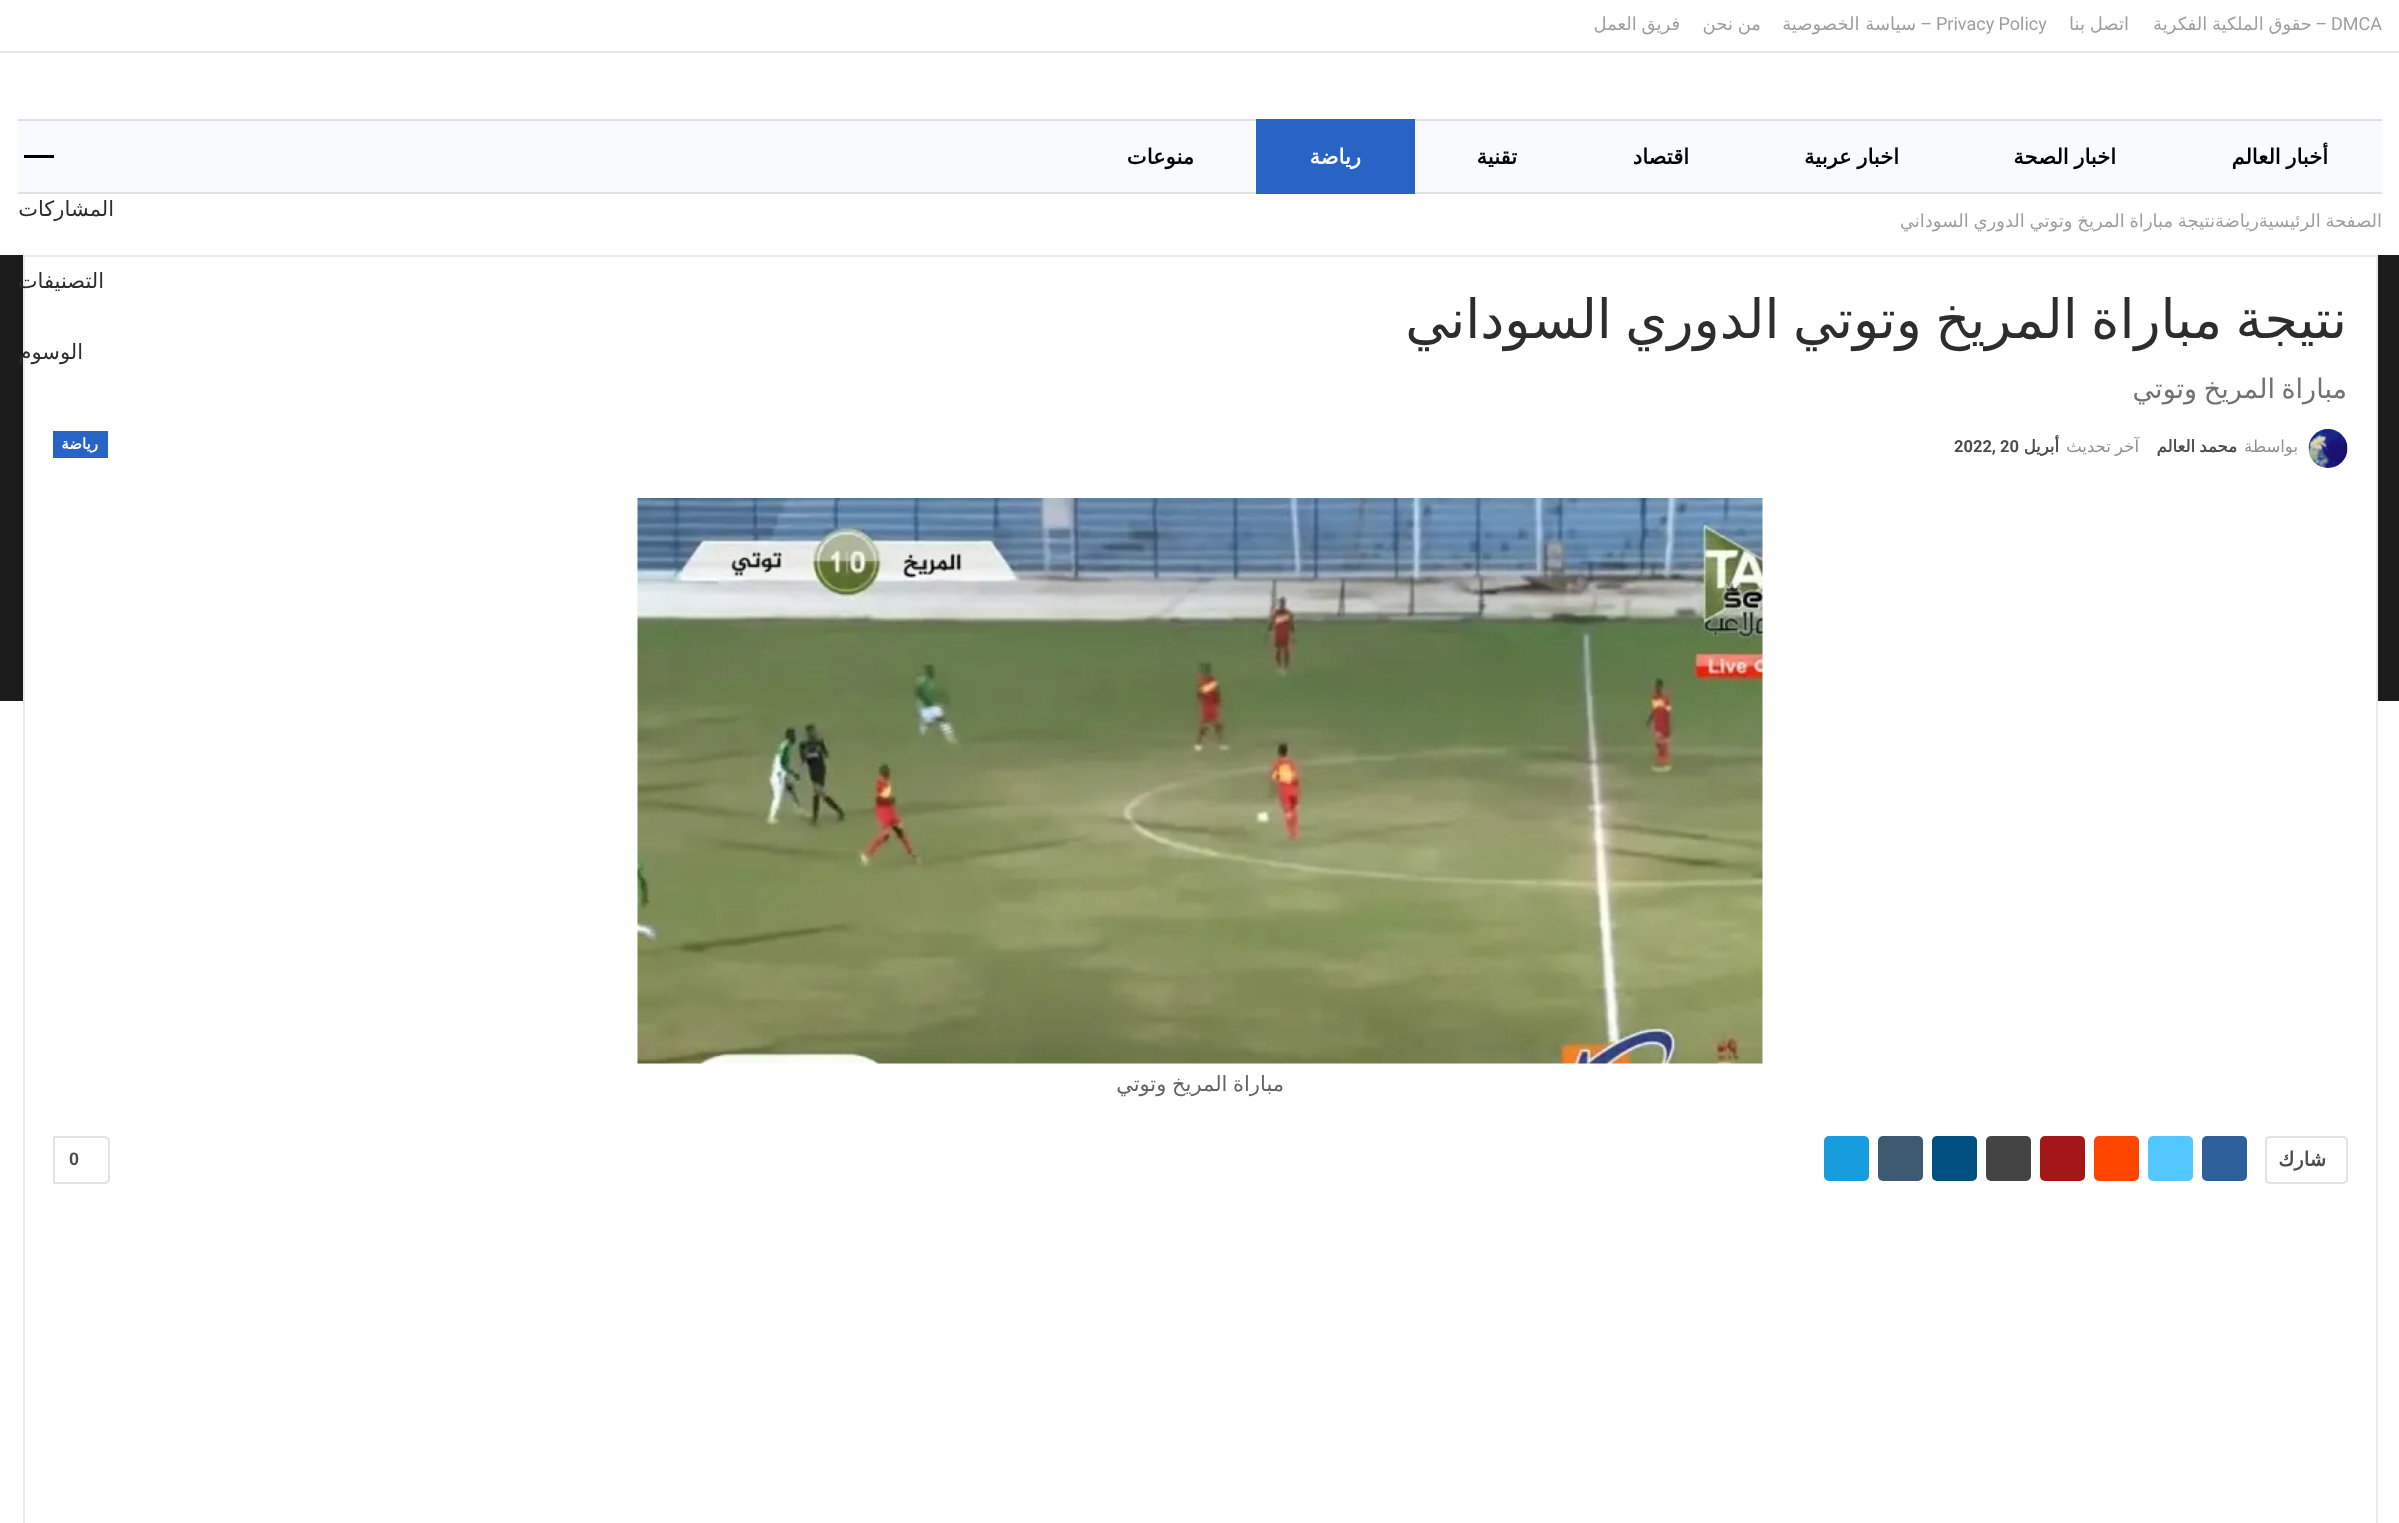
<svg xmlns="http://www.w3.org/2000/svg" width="2399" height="1523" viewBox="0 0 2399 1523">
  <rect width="100%" height="100%" fill="#ffffff"/>
  <rect x="0" y="51" width="2399" height="2" fill="#e7e7e7"/>
  <text x="2331" y="30" font-family="Roboto" font-size="18" fill="#9e9e9e">DMCA</text>
  <text x="2327" y="30" font-family="Roboto" font-size="18" direction="rtl" fill="#9e9e9e">–</text>
  <text x="2312" y="30" word-spacing="-1" font-family="DejaVu Sans" font-size="18" direction="rtl" fill="#9e9e9e">حقوق الملكية الفكرية</text>
  <text x="2129" y="30" word-spacing="-1" font-family="DejaVu Sans" font-size="18" direction="rtl" fill="#9e9e9e">اتصل بنا</text>
  <text x="1936" y="30" font-family="Roboto" font-size="18" fill="#9e9e9e">Privacy Policy</text>
  <text x="1932" y="30" font-family="Roboto" font-size="18" direction="rtl" fill="#9e9e9e">–</text>
  <text x="1916" y="30" font-family="DejaVu Sans" font-size="18" direction="rtl" fill="#9e9e9e">سياسة الخصوصية</text>
  <text x="1761" y="30" word-spacing="-1" font-family="DejaVu Sans" font-size="18" direction="rtl" fill="#9e9e9e">من نحن</text>
  <text x="1680" y="30" word-spacing="-1" font-family="DejaVu Sans" font-size="18" direction="rtl" fill="#9e9e9e">فريق العمل</text>
  <rect x="18" y="121" width="2364" height="71" fill="#f9fafd"/>
  <rect x="18" y="119" width="2364" height="2" fill="#e0e1e3"/>
  <rect x="18" y="192" width="2364" height="2" fill="#e0e1e3"/>
  <text x="2328" y="164" word-spacing="-1" font-family="DejaVu Sans" font-size="21" font-weight="bold" direction="rtl" fill="#000000">أخبار العالم</text>
  <text x="2116" y="164" word-spacing="-1" font-family="DejaVu Sans" font-size="21" font-weight="bold" direction="rtl" fill="#000000">اخبار الصحة</text>
  <text x="1899" y="164" word-spacing="-1" font-family="DejaVu Sans" font-size="21" font-weight="bold" direction="rtl" fill="#000000">اخبار عربية</text>
  <text x="1689" y="164" font-family="DejaVu Sans" font-size="21" font-weight="bold" direction="rtl" fill="#000000">اقتصاد</text>
  <text x="1517" y="164" font-family="DejaVu Sans" font-size="21" font-weight="bold" direction="rtl" fill="#000000">تقنية</text>
  <rect x="1256" y="119" width="159" height="75" fill="#2863c6"/>
  <text x="1361" y="164" font-family="DejaVu Sans" font-size="21" font-weight="bold" direction="rtl" fill="#ffffff">رياضة</text>
  <text x="1194" y="164" font-family="DejaVu Sans" font-size="21" font-weight="bold" direction="rtl" fill="#000000">منوعات</text>
  <rect x="24" y="155" width="30" height="3" fill="#000000"/>
  <text x="114" y="216" font-family="DejaVu Sans" font-size="21" direction="rtl" fill="#2d2d2d">المشاركات</text>
  <rect x="0" y="255" width="2399" height="446" fill="#1c1c1c"/>
  <rect x="25" y="257" width="2351" height="444" fill="#ffffff"/>
  <rect x="24" y="256" width="2353" height="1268" fill="none" stroke="#ebebeb" stroke-width="2"/>
  <text x="104" y="288" font-family="DejaVu Sans" font-size="21" direction="rtl" fill="#2d2d2d">التصنيفات</text>
  <text x="83" y="359" font-family="DejaVu Sans" font-size="21" direction="rtl" fill="#2d2d2d">الوسوم</text>
  <text x="2382" y="227" word-spacing="-1" font-family="DejaVu Sans" font-size="18" direction="rtl" fill="#9e9e9e">الصفحة الرئيسية</text>
  <text x="2259" y="227" font-family="DejaVu Sans" font-size="18" direction="rtl" fill="#9e9e9e">رياضة</text>
  <text x="2215" y="227" word-spacing="-1" font-family="DejaVu Sans" font-size="18" direction="rtl" fill="#9e9e9e">نتيجة مباراة المريخ وتوتي الدوري السوداني</text>
  <text x="2347" y="338" word-spacing="-3.75" font-family="DejaVu Sans" font-size="54" direction="rtl" fill="#2d2d2d">نتيجة مباراة المريخ وتوتي الدوري السوداني</text>
  <text x="2347" y="398" word-spacing="-2" font-family="DejaVu Sans" font-size="27" direction="rtl" fill="#717171">مباراة المريخ وتوتي</text>
  <image x="2308" y="429" width="40" height="39" href="img1.png"/>
  <text x="2298" y="452" font-family="DejaVu Sans" font-size="16.5" direction="rtl" fill="#8f8f8f">بواسطة</text>
  <text x="2237" y="452" word-spacing="-1" font-family="DejaVu Sans" font-size="16.5" font-weight="bold" direction="rtl" fill="#4d4d4d">محمد العالم</text>
  <text x="2139" y="452" word-spacing="-1" font-family="DejaVu Sans" font-size="16.5" direction="rtl" fill="#8f8f8f">آخر تحديث</text>
  <text x="2059" y="452" font-family="DejaVu Sans" font-size="16.5" font-weight="bold" direction="rtl" fill="#4d4d4d">أبريل</text>
  <text x="1954" y="452" font-family="Roboto" font-size="16.5" font-weight="bold" fill="#4d4d4d">2022, 20</text>
  <rect x="53" y="431" width="55" height="27" fill="#2863c6"/>
  <text x="98" y="449" font-family="DejaVu Sans" font-size="15" font-weight="bold" direction="rtl" fill="#ffffff">رياضة</text>
  <image x="637" y="498" width="1126" height="566" href="img2.png"/>
  <text x="1284" y="1091" word-spacing="-1" font-family="DejaVu Sans" font-size="21" direction="rtl" fill="#5f6569">مباراة المريخ وتوتي</text>
  <rect x="2266" y="1137" width="81" height="46" rx="4" fill="none" stroke="#e2e2e2" stroke-width="2"/>
  <text x="2326" y="1166" font-family="DejaVu Sans" font-size="19.5" font-weight="bold" direction="rtl" fill="#4d4d4d">شارك</text>
  <rect x="2202" y="1136" width="45" height="45" rx="5" fill="#2d5f9a"/>
  <rect x="2148" y="1136" width="45" height="45" rx="5" fill="#53c7ff"/>
  <rect x="2094" y="1136" width="45" height="45" rx="5" fill="#ff4500"/>
  <rect x="2040" y="1136" width="45" height="45" rx="5" fill="#a41719"/>
  <rect x="1986" y="1136" width="45" height="45" rx="5" fill="#444444"/>
  <rect x="1932" y="1136" width="45" height="45" rx="5" fill="#005182"/>
  <rect x="1878" y="1136" width="45" height="45" rx="5" fill="#3e5a70"/>
  <rect x="1824" y="1136" width="45" height="45" rx="5" fill="#179cde"/>
  <path d="M54 1137H105C107 1137 109 1139 109 1141V1179C109 1181 107 1183 105 1183H54Z" fill="none" stroke="#e2e2e2" stroke-width="2"/>
  <text x="69" y="1165" font-family="Liberation Sans" font-size="18" font-weight="bold" fill="#4d4d4d">0</text>
</svg>
